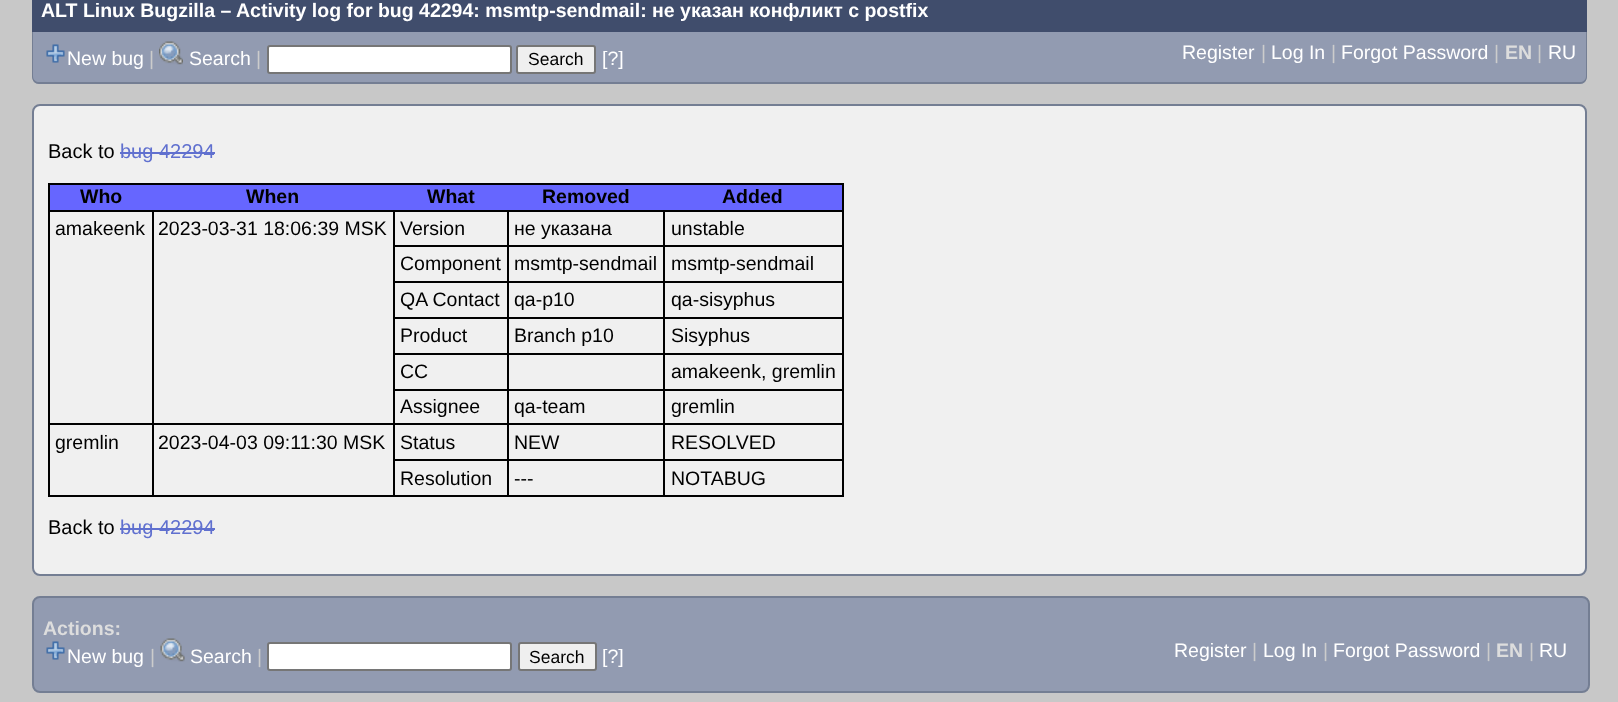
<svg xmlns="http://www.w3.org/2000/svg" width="1618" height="702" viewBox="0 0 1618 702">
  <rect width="100%" height="100%" fill="#c8c8c8"/>
  <rect x="32" y="0" width="1555" height="32" fill="#404d6c"/>
  <text x="41" y="17" font-family="Liberation Sans" font-size="19.5" font-weight="bold" fill="#ffffff">ALT Linux Bugzilla – Activity log for bug 42294: msmtp-sendmail: не указан конфликт с postfix</text>
  <path d="M32 32H1587V76C1587 80.5 1583.5 84 1579 84H40C35.5 84 32 80.5 32 76Z" fill="#929bb1"/>
  <path d="M32 32H1587V76C1587 81 1584 84 1580 84H39C35 84 32 81 32 76ZM33 32H1586V76C1586 80 1583 82 1580 82H39C36 82 33 80 33 76Z" fill="#747e93" fill-rule="evenodd"/>
  <image x="46" y="44" width="19" height="19" href="img1.png"/>
  <text x="67" y="65" font-family="Liberation Sans" font-size="19.5" fill="#ffffff">New bug</text>
  <text x="149" y="65" font-family="Liberation Sans" font-size="19.5" fill="#cccccc">|</text>
  <image x="159" y="41" width="24" height="24" href="img2.png"/>
  <text x="189" y="65" font-family="Liberation Sans" font-size="19.5" fill="#ffffff">Search</text>
  <text x="256" y="65" font-family="Liberation Sans" font-size="19.5" fill="#cccccc">|</text>
  <rect x="268" y="46" width="243" height="27" rx="2" fill="#ffffff" stroke="#767676" stroke-width="2"/>
  <rect x="517" y="46" width="78" height="27" rx="2" fill="#efefef" stroke="#767676" stroke-width="2"/>
  <text x="528" y="65" font-family="Liberation Sans" font-size="17.5" fill="#000000">Search</text>
  <text x="602" y="65" font-family="Liberation Sans" font-size="19.5" fill="#ffffff">[?]</text>
  <text x="1182" y="59" font-family="Liberation Sans" font-size="19.5" fill="#ffffff">Register</text>
  <text x="1261" y="59" font-family="Liberation Sans" font-size="19.5" fill="#cccccc">|</text>
  <text x="1271" y="59" font-family="Liberation Sans" font-size="19.5" fill="#ffffff">Log In</text>
  <text x="1331" y="59" font-family="Liberation Sans" font-size="19.5" fill="#cccccc">|</text>
  <text x="1341" y="59" font-family="Liberation Sans" font-size="19.5" fill="#ffffff">Forgot Password</text>
  <text x="1494" y="59" font-family="Liberation Sans" font-size="19.5" fill="#cccccc">|</text>
  <text x="1505" y="59" font-family="Liberation Sans" font-size="19.5" font-weight="bold" fill="#dddddd">EN</text>
  <text x="1537" y="59" font-family="Liberation Sans" font-size="19.5" fill="#cccccc">|</text>
  <text x="1548" y="59" font-family="Liberation Sans" font-size="19.5" fill="#ffffff">RU</text>
  <rect x="33" y="105" width="1553" height="470" rx="7" fill="#f0f0f0" stroke="#747e93" stroke-width="2"/>
  <text x="48" y="158" font-family="Liberation Sans" font-size="20" fill="#000000">Back to</text>
  <text x="120" y="158" font-family="Liberation Sans" font-size="20" fill="#6070cf">bug 42294</text>
  <rect x="120" y="152" width="95" height="2" fill="#6070cf"/>
  <rect x="48" y="183" width="795" height="2" fill="#000000"/>
  <rect x="842" y="183" width="2" height="314" fill="#000000"/>
  <rect x="48" y="495" width="795" height="2" fill="#000000"/>
  <rect x="48" y="183" width="2" height="314" fill="#000000"/>
  <rect x="50" y="185" width="792" height="25" fill="#6666ff"/>
  <text x="80" y="203" font-family="Liberation Sans" font-size="19.5" font-weight="bold" fill="#000000">Who</text>
  <text x="246" y="203" font-family="Liberation Sans" font-size="19.5" font-weight="bold" fill="#000000">When</text>
  <text x="427" y="203" font-family="Liberation Sans" font-size="19.5" font-weight="bold" fill="#000000">What</text>
  <text x="542" y="203" font-family="Liberation Sans" font-size="19.5" font-weight="bold" fill="#000000">Removed</text>
  <text x="722" y="203" font-family="Liberation Sans" font-size="19.5" font-weight="bold" fill="#000000">Added</text>
  <rect x="663" y="210" width="180" height="2" fill="#000000"/>
  <rect x="663" y="245" width="180" height="2" fill="#000000"/>
  <rect x="663" y="281" width="180" height="2" fill="#000000"/>
  <rect x="663" y="317" width="180" height="2" fill="#000000"/>
  <rect x="663" y="353" width="180" height="2" fill="#000000"/>
  <rect x="663" y="389" width="180" height="2" fill="#000000"/>
  <rect x="663" y="423" width="180" height="2" fill="#000000"/>
  <rect x="663" y="459" width="180" height="2" fill="#000000"/>
  <rect x="663" y="459" width="2" height="38" fill="#000000"/>
  <rect x="507" y="459" width="158" height="2" fill="#000000"/>
  <rect x="663" y="423" width="2" height="38" fill="#000000"/>
  <rect x="507" y="423" width="158" height="2" fill="#000000"/>
  <rect x="663" y="389" width="2" height="36" fill="#000000"/>
  <rect x="507" y="389" width="158" height="2" fill="#000000"/>
  <rect x="663" y="353" width="2" height="37" fill="#000000"/>
  <rect x="507" y="353" width="158" height="2" fill="#000000"/>
  <rect x="663" y="317" width="2" height="37" fill="#000000"/>
  <rect x="507" y="317" width="158" height="2" fill="#000000"/>
  <rect x="663" y="281" width="2" height="37" fill="#000000"/>
  <rect x="507" y="281" width="158" height="2" fill="#000000"/>
  <rect x="663" y="245" width="2" height="37" fill="#000000"/>
  <rect x="507" y="245" width="158" height="2" fill="#000000"/>
  <rect x="663" y="210" width="2" height="36" fill="#000000"/>
  <rect x="507" y="210" width="158" height="2" fill="#000000"/>
  <rect x="507" y="459" width="2" height="38" fill="#000000"/>
  <rect x="393" y="459" width="116" height="2" fill="#000000"/>
  <rect x="507" y="423" width="2" height="38" fill="#000000"/>
  <rect x="393" y="423" width="116" height="2" fill="#000000"/>
  <rect x="507" y="389" width="2" height="36" fill="#000000"/>
  <rect x="393" y="389" width="116" height="2" fill="#000000"/>
  <rect x="507" y="353" width="2" height="37" fill="#000000"/>
  <rect x="393" y="353" width="116" height="2" fill="#000000"/>
  <rect x="507" y="317" width="2" height="37" fill="#000000"/>
  <rect x="393" y="317" width="116" height="2" fill="#000000"/>
  <rect x="507" y="281" width="2" height="37" fill="#000000"/>
  <rect x="393" y="281" width="116" height="2" fill="#000000"/>
  <rect x="507" y="245" width="2" height="37" fill="#000000"/>
  <rect x="393" y="245" width="116" height="2" fill="#000000"/>
  <rect x="507" y="210" width="2" height="36" fill="#000000"/>
  <rect x="393" y="210" width="116" height="2" fill="#000000"/>
  <rect x="393" y="459" width="2" height="38" fill="#000000"/>
  <rect x="393" y="423" width="2" height="38" fill="#000000"/>
  <rect x="152" y="423" width="243" height="2" fill="#000000"/>
  <rect x="393" y="389" width="2" height="36" fill="#000000"/>
  <rect x="393" y="353" width="2" height="37" fill="#000000"/>
  <rect x="393" y="317" width="2" height="37" fill="#000000"/>
  <rect x="393" y="281" width="2" height="37" fill="#000000"/>
  <rect x="393" y="245" width="2" height="37" fill="#000000"/>
  <rect x="393" y="210" width="2" height="36" fill="#000000"/>
  <rect x="152" y="210" width="243" height="2" fill="#000000"/>
  <rect x="152" y="423" width="2" height="74" fill="#000000"/>
  <rect x="48" y="423" width="105" height="2" fill="#000000"/>
  <rect x="152" y="210" width="2" height="215" fill="#000000"/>
  <rect x="48" y="210" width="105" height="2" fill="#000000"/>
  <text x="55" y="235" font-family="Liberation Sans" font-size="19.5" fill="#000000">amakeenk</text>
  <text x="158" y="235" font-family="Liberation Sans" font-size="19.5" fill="#000000">2023-03-31 18:06:39 MSK</text>
  <text x="400" y="235" font-family="Liberation Sans" font-size="19.5" fill="#000000">Version</text>
  <text x="514" y="235" font-family="Liberation Sans" font-size="19.5" fill="#000000">не указана</text>
  <text x="671" y="235" font-family="Liberation Sans" font-size="19.5" fill="#000000">unstable</text>
  <text x="400" y="270" font-family="Liberation Sans" font-size="19.5" fill="#000000">Component</text>
  <text x="514" y="270" font-family="Liberation Sans" font-size="19.5" fill="#000000">msmtp-sendmail</text>
  <text x="671" y="270" font-family="Liberation Sans" font-size="19.5" fill="#000000">msmtp-sendmail</text>
  <text x="400" y="306" font-family="Liberation Sans" font-size="19.5" fill="#000000">QA Contact</text>
  <text x="514" y="306" font-family="Liberation Sans" font-size="19.5" fill="#000000">qa-p10</text>
  <text x="671" y="306" font-family="Liberation Sans" font-size="19.5" fill="#000000">qa-sisyphus</text>
  <text x="400" y="342" font-family="Liberation Sans" font-size="19.5" fill="#000000">Product</text>
  <text x="514" y="342" font-family="Liberation Sans" font-size="19.5" fill="#000000">Branch p10</text>
  <text x="671" y="342" font-family="Liberation Sans" font-size="19.5" fill="#000000">Sisyphus</text>
  <text x="400" y="378" font-family="Liberation Sans" font-size="19.5" fill="#000000">CC</text>
  <text x="671" y="378" font-family="Liberation Sans" font-size="19.5" fill="#000000">amakeenk, gremlin</text>
  <text x="400" y="413" font-family="Liberation Sans" font-size="19.5" fill="#000000">Assignee</text>
  <text x="514" y="413" font-family="Liberation Sans" font-size="19.5" fill="#000000">qa-team</text>
  <text x="671" y="413" font-family="Liberation Sans" font-size="19.5" fill="#000000">gremlin</text>
  <text x="55" y="449" font-family="Liberation Sans" font-size="19.5" fill="#000000">gremlin</text>
  <text x="158" y="449" font-family="Liberation Sans" font-size="19.5" fill="#000000">2023-04-03 09:11:30 MSK</text>
  <text x="400" y="449" font-family="Liberation Sans" font-size="19.5" fill="#000000">Status</text>
  <text x="514" y="449" font-family="Liberation Sans" font-size="19.5" fill="#000000">NEW</text>
  <text x="671" y="449" font-family="Liberation Sans" font-size="19.5" fill="#000000">RESOLVED</text>
  <text x="400" y="485" font-family="Liberation Sans" font-size="19.5" fill="#000000">Resolution</text>
  <text x="514" y="485" font-family="Liberation Sans" font-size="19.5" fill="#000000">---</text>
  <text x="671" y="485" font-family="Liberation Sans" font-size="19.5" fill="#000000">NOTABUG</text>
  <text x="48" y="534" font-family="Liberation Sans" font-size="20" fill="#000000">Back to</text>
  <text x="120" y="534" font-family="Liberation Sans" font-size="20" fill="#6070cf">bug 42294</text>
  <rect x="120" y="528" width="95" height="2" fill="#6070cf"/>
  <rect x="33" y="597" width="1556" height="95" rx="7" fill="#929bb1" stroke="#747e93" stroke-width="2"/>
  <text x="43" y="635" font-family="Liberation Sans" font-size="19.5" font-weight="bold" fill="#dddddd">Actions:</text>
  <image x="46" y="641" width="19" height="19" href="img1.png"/>
  <text x="67" y="663" font-family="Liberation Sans" font-size="19.5" fill="#ffffff">New bug</text>
  <text x="150" y="663" font-family="Liberation Sans" font-size="19.5" fill="#cccccc">|</text>
  <image x="160" y="638" width="25" height="24" href="img3.png"/>
  <text x="190" y="663" font-family="Liberation Sans" font-size="19.5" fill="#ffffff">Search</text>
  <text x="257" y="663" font-family="Liberation Sans" font-size="19.5" fill="#cccccc">|</text>
  <rect x="268" y="643" width="243" height="27" rx="2" fill="#ffffff" stroke="#767676" stroke-width="2"/>
  <rect x="519" y="643" width="77" height="27" rx="2" fill="#efefef" stroke="#767676" stroke-width="2"/>
  <text x="529" y="663" font-family="Liberation Sans" font-size="17.5" fill="#000000">Search</text>
  <text x="602" y="663" font-family="Liberation Sans" font-size="19.5" fill="#ffffff">[?]</text>
  <text x="1174" y="657" font-family="Liberation Sans" font-size="19.5" fill="#ffffff">Register</text>
  <text x="1252" y="657" font-family="Liberation Sans" font-size="19.5" fill="#cccccc">|</text>
  <text x="1263" y="657" font-family="Liberation Sans" font-size="19.5" fill="#ffffff">Log In</text>
  <text x="1323" y="657" font-family="Liberation Sans" font-size="19.5" fill="#cccccc">|</text>
  <text x="1333" y="657" font-family="Liberation Sans" font-size="19.5" fill="#ffffff">Forgot Password</text>
  <text x="1486" y="657" font-family="Liberation Sans" font-size="19.5" fill="#cccccc">|</text>
  <text x="1496" y="657" font-family="Liberation Sans" font-size="19.5" font-weight="bold" fill="#dddddd">EN</text>
  <text x="1529" y="657" font-family="Liberation Sans" font-size="19.5" fill="#cccccc">|</text>
  <text x="1539" y="657" font-family="Liberation Sans" font-size="19.5" fill="#ffffff">RU</text>
</svg>
